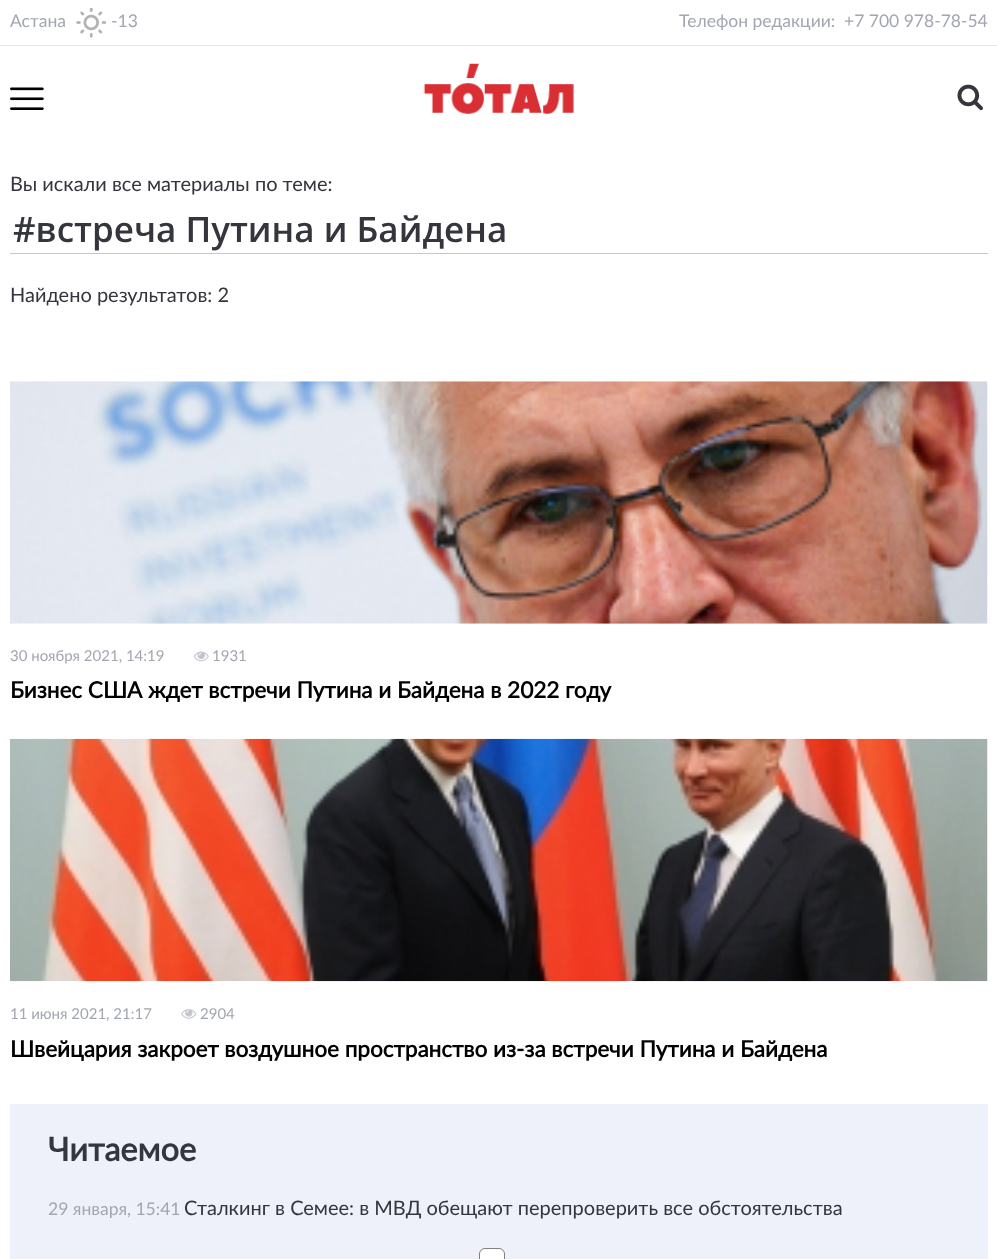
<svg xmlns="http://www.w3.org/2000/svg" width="997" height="1259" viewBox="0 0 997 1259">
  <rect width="100%" height="100%" fill="#ffffff"/>
  <rect x="0" y="45" width="997" height="1" fill="#e0e4ee"/>
  <text x="10" y="27" font-family="Lato" font-size="17.5" fill="#a2a6b0">Астана</text>
  <image x="76" y="8" width="30" height="30" href="img1.png"/>
  <text x="111" y="27" font-family="Lato" font-size="17.5" fill="#a2a6b0">-13</text>
  <text x="679" y="27" font-family="Lato" font-size="17.5" fill="#a2a6b0">Телефон редакции:</text>
  <text x="844" y="27" font-family="Lato" font-size="17.5" fill="#a2a6b0">+7 700 978-78-54</text>
  <image x="10" y="87" width="34" height="23" href="img2.png"/>
  <image x="423" y="63" width="151" height="51" href="img3.png"/>
  <image x="957" y="84" width="26" height="27" href="img4.png"/>
  <text x="10" y="191" font-family="Lato" font-size="20" fill="#35363d">Вы искали все материалы по теме:</text>
  <rect x="10" y="253" width="978" height="1" fill="#c3c6ce"/>
  <text x="13" y="242" font-family="Open Sans" font-size="35" font-weight="600" fill="#35363d">#встреча Путина и Байдена</text>
  <text x="10" y="302" font-family="Lato" font-size="20" fill="#35363d">Найдено результатов: 2</text>
  <image x="10" y="381" width="978" height="243" href="img5.png"/>
  <text x="10" y="661" font-family="Lato" font-size="15" fill="#a2a6b0">30 ноября 2021, 14:19</text>
  <image x="193" y="651" width="16" height="11" href="img6.png"/>
  <text x="212" y="661" font-family="Lato" font-size="15" fill="#a2a6b0">1931</text>
  <text x="10" y="698" font-family="Lato" font-size="22.5" font-weight="bold" fill="#000000">Бизнес США ждет встречи Путина и Байдена в 2022 году</text>
  <image x="10" y="738" width="978" height="244" href="img7.png"/>
  <text x="10" y="1019" font-family="Lato" font-size="15" fill="#a2a6b0">11 июня 2021, 21:17</text>
  <image x="181" y="1009" width="16" height="10" href="img8.png"/>
  <text x="200" y="1019" font-family="Lato" font-size="15" fill="#a2a6b0">2904</text>
  <text x="10" y="1057" font-family="Lato" font-size="22.5" font-weight="bold" fill="#000000">Швейцария закроет воздушное пространство из-за встречи Путина и Байдена</text>
  <rect x="10" y="1104" width="978" height="155" fill="#eef1f9"/>
  <text x="48" y="1161" font-family="Lato" font-size="32.5" font-weight="bold" fill="#35363d">Читаемое</text>
  <text x="48" y="1215" font-family="Lato" font-size="17.5" fill="#a2a6b0">29 января, 15:41</text>
  <text x="184" y="1215" font-family="Lato" font-size="20" fill="#35363d">Сталкинг в Семее: в МВД обещают перепроверить все обстоятельства</text>
  <rect x="479.5" y="1248.5" width="25" height="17" rx="5.5" fill="#ffffff" stroke="#808080"/>
</svg>
